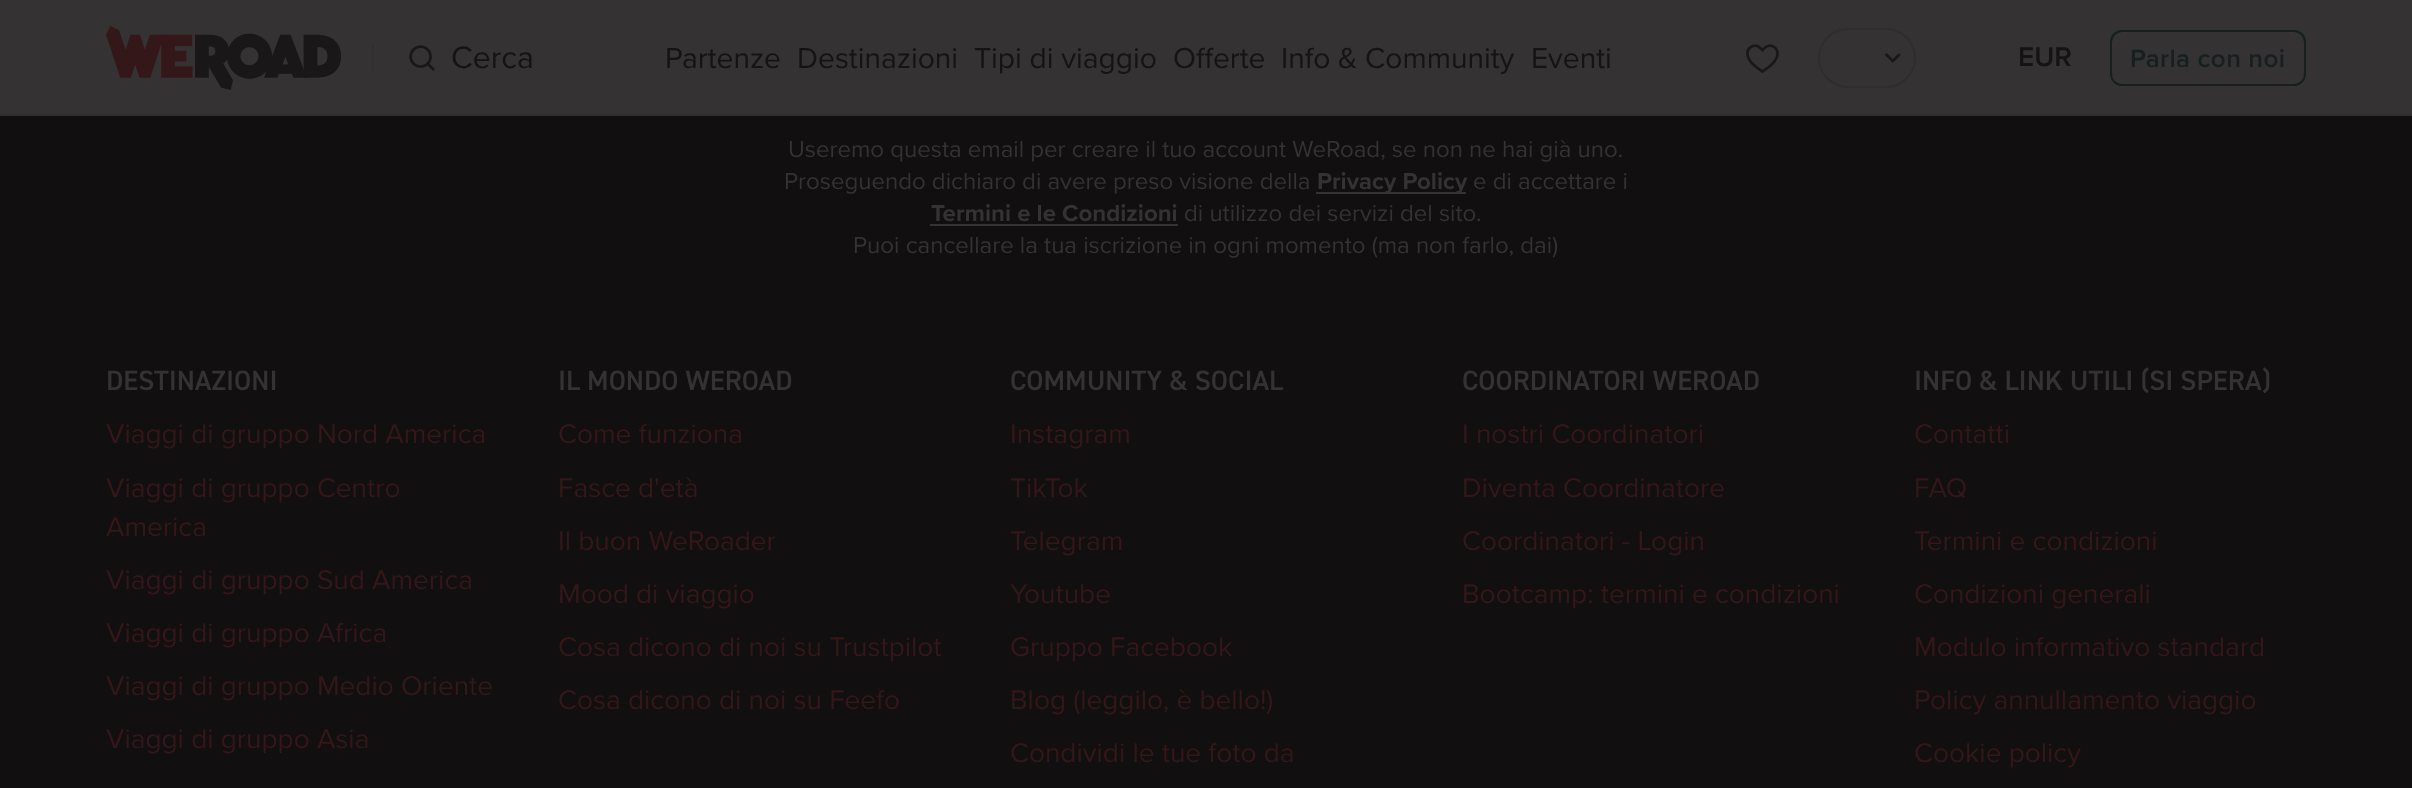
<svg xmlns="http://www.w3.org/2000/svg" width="2412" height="788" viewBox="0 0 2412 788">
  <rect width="100%" height="100%" fill="#110f0f"/>
  <rect x="0" y="0" width="2412" height="114" fill="#343232"/>
  <rect x="0" y="114" width="2412" height="2" fill="#302e2e"/>
  <image x="106" y="26" width="235" height="64" href="img1.png"/>
  <rect x="372" y="44" width="2" height="30" fill="#313030"/>
  <image x="409" y="45" width="26" height="26" href="img2.png"/>
  <text x="451" y="68" font-family="Proxima Nova" font-size="32" fill="#151313">Cerca</text>
  <text x="665" y="68" font-family="Proxima Nova" font-size="30" fill="#151313">Partenze</text>
  <text x="797" y="68" font-family="Proxima Nova" font-size="30" fill="#151313">Destinazioni</text>
  <text x="974" y="68" font-family="Proxima Nova" font-size="30" fill="#151313">Tipi di viaggio</text>
  <text x="1173" y="68" font-family="Proxima Nova" font-size="30" fill="#151313">Offerte</text>
  <text x="1281" y="68" font-family="Proxima Nova" font-size="30" fill="#151313">Info &amp; Community</text>
  <text x="1531" y="68" font-family="Proxima Nova" font-size="30" fill="#151313">Eventi</text>
  <image x="1746" y="44" width="33" height="29" href="img3.png"/>
  <rect x="1819" y="29" width="96" height="58" rx="29" fill="none" stroke="#2f2d2d" stroke-width="2"/>
  <image x="1884" y="53" width="17" height="10" href="img4.png"/>
  <text x="2018" y="66" font-family="Proxima Nova" font-size="28" font-weight="600" fill="#151313">EUR</text>
  <rect x="2111" y="31" width="194" height="54" rx="11" fill="none" stroke="#171f20" stroke-width="2"/>
  <text x="2130" y="67" font-family="Proxima Nova" font-size="26" font-weight="600" letter-spacing="0.4" fill="#171f20">Parla con noi</text>
  <text x="788" y="157" font-family="Proxima Nova" font-size="24" fill="#343232">Useremo questa email per creare il tuo account WeRoad, se non ne hai già uno.</text>
  <text x="784" y="189" font-family="Proxima Nova" font-size="24" fill="#343232">Proseguendo dichiaro di avere preso visione della</text>
  <rect x="1316" y="192" width="150" height="2" fill="#343232"/>
  <text x="1317" y="189" font-family="Proxima Nova" font-size="24" font-weight="bold" fill="#343232">Privacy Policy</text>
  <text x="1473" y="189" font-family="Proxima Nova" font-size="24" fill="#343232">e di accettare i</text>
  <text x="931" y="221" font-family="Proxima Nova" font-size="24" font-weight="bold" fill="#343232">Termini e le Condizioni</text>
  <rect x="930" y="224" width="248" height="2" fill="#343232"/>
  <text x="1184" y="221" font-family="Proxima Nova" font-size="24" fill="#343232">di utilizzo dei servizi del sito.</text>
  <text x="853" y="253" font-family="Proxima Nova" font-size="24" fill="#343232">Puoi cancellare la tua iscrizione in ogni momento (ma non farlo, dai)</text>
  <text x="106" y="390" font-family="'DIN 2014'" font-size="28" font-weight="600" fill="#343232">DESTINAZIONI</text>
  <text x="106" y="443" font-family="Proxima Nova" font-size="28" fill="#341719">Viaggi di gruppo Nord America</text>
  <text x="106" y="497" font-family="Proxima Nova" font-size="28" fill="#341719">Viaggi di gruppo Centro</text>
  <text x="106" y="536" font-family="Proxima Nova" font-size="28" fill="#341719">America</text>
  <text x="106" y="589" font-family="Proxima Nova" font-size="28" fill="#341719">Viaggi di gruppo Sud America</text>
  <text x="106" y="642" font-family="Proxima Nova" font-size="28" fill="#341719">Viaggi di gruppo Africa</text>
  <text x="106" y="695" font-family="Proxima Nova" font-size="28" fill="#341719">Viaggi di gruppo Medio Oriente</text>
  <text x="106" y="748" font-family="Proxima Nova" font-size="28" fill="#341719">Viaggi di gruppo Asia</text>
  <text x="558" y="390" font-family="'DIN 2014'" font-size="28" font-weight="600" fill="#343232">IL MONDO WEROAD</text>
  <text x="558" y="443" font-family="Proxima Nova" font-size="28" fill="#341719">Come funziona</text>
  <text x="558" y="497" font-family="Proxima Nova" font-size="28" fill="#341719">Fasce d'età</text>
  <text x="558" y="550" font-family="Proxima Nova" font-size="28" fill="#341719">Il buon WeRoader</text>
  <text x="558" y="603" font-family="Proxima Nova" font-size="28" fill="#341719">Mood di viaggio</text>
  <text x="558" y="656" font-family="Proxima Nova" font-size="28" fill="#341719">Cosa dicono di noi su Trustpilot</text>
  <text x="558" y="709" font-family="Proxima Nova" font-size="28" fill="#341719">Cosa dicono di noi su Feefo</text>
  <text x="1010" y="390" font-family="'DIN 2014'" font-size="28" font-weight="600" fill="#343232">COMMUNITY &amp; SOCIAL</text>
  <text x="1010" y="443" font-family="Proxima Nova" font-size="28" fill="#341719">Instagram</text>
  <text x="1010" y="497" font-family="Proxima Nova" font-size="28" fill="#341719">TikTok</text>
  <text x="1010" y="550" font-family="Proxima Nova" font-size="28" fill="#341719">Telegram</text>
  <text x="1010" y="603" font-family="Proxima Nova" font-size="28" fill="#341719">Youtube</text>
  <text x="1010" y="656" font-family="Proxima Nova" font-size="28" fill="#341719">Gruppo Facebook</text>
  <text x="1010" y="709" font-family="Proxima Nova" font-size="28" fill="#341719">Blog (leggilo, è bello!)</text>
  <text x="1010" y="762" font-family="Proxima Nova" font-size="28" fill="#341719">Condividi le tue foto da</text>
  <text x="1462" y="390" font-family="'DIN 2014'" font-size="28" font-weight="600" fill="#343232">COORDINATORI WEROAD</text>
  <text x="1462" y="443" font-family="Proxima Nova" font-size="28" fill="#341719">I nostri Coordinatori</text>
  <text x="1462" y="497" font-family="Proxima Nova" font-size="28" fill="#341719">Diventa Coordinatore</text>
  <text x="1462" y="550" font-family="Proxima Nova" font-size="28" fill="#341719">Coordinatori - Login</text>
  <text x="1462" y="603" font-family="Proxima Nova" font-size="28" fill="#341719">Bootcamp: termini e condizioni</text>
  <text x="1914" y="390" font-family="'DIN 2014'" font-size="28" font-weight="600" fill="#343232">INFO &amp; LINK UTILI (SI SPERA)</text>
  <text x="1914" y="443" font-family="Proxima Nova" font-size="28" fill="#341719">Contatti</text>
  <text x="1914" y="497" font-family="Proxima Nova" font-size="28" fill="#341719">FAQ</text>
  <text x="1914" y="550" font-family="Proxima Nova" font-size="28" fill="#341719">Termini e condizioni</text>
  <text x="1914" y="603" font-family="Proxima Nova" font-size="28" fill="#341719">Condizioni generali</text>
  <text x="1914" y="656" font-family="Proxima Nova" font-size="28" fill="#341719">Modulo informativo standard</text>
  <text x="1914" y="709" font-family="Proxima Nova" font-size="28" fill="#341719">Policy annullamento viaggio</text>
  <text x="1914" y="762" font-family="Proxima Nova" font-size="28" fill="#341719">Cookie policy</text>
</svg>
